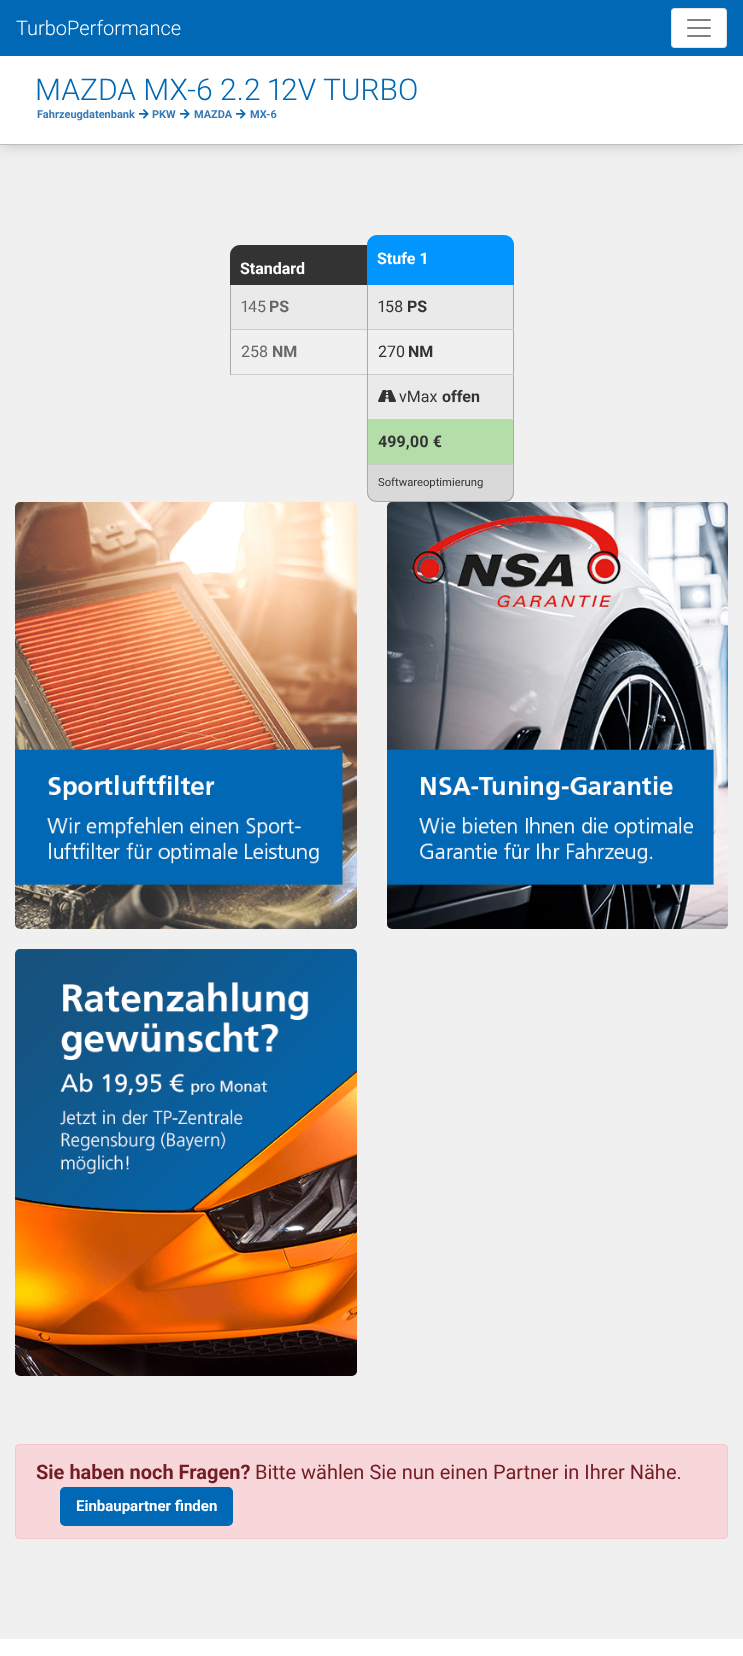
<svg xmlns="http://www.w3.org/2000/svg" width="743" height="1656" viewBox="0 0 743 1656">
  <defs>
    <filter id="blur1" x="-50%" y="-200%" width="200%" height="500%"><feGaussianBlur stdDeviation="7.5"/></filter>
  </defs>
  <rect width="100%" height="100%" fill="#f0f0f0"/>
  <rect x="0" y="55" width="743" height="90" fill="#000000" fill-opacity="0.2" filter="url(#blur1)"/>
  <rect x="0" y="0" width="743" height="56" fill="#0068b4"/>
  <text x="16" y="35" font-family="Roboto" font-size="20" font-weight="300" fill="#ffffff">TurboPerformance</text>
  <rect x="671" y="8" width="56" height="40" rx="4" fill="#ffffff"/>
  <rect x="671.5" y="8.5" width="55" height="39" rx="3.5" fill="none" stroke="#000000" stroke-opacity="0.1"/>
  <image x="687" y="19" width="24" height="18" href="img1.png"/>
  <rect x="0" y="56" width="743" height="88" fill="#ffffff"/>
  <rect x="0" y="144" width="743" height="1" fill="#bebebe"/>
  <text x="35" y="100" font-family="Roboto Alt" font-size="30" font-weight="300" fill="#0068b4">MAZDA MX-6 2.2 12V TURBO</text>
  <text x="37" y="118" font-family="Roboto" font-size="11" font-weight="bold" fill="#337ab7">Fahrzeugdatenbank</text>
  <image x="139" y="109" width="10" height="10" href="img2.png"/>
  <text x="152" y="118" font-family="Roboto" font-size="11" font-weight="bold" fill="#337ab7">PKW</text>
  <image x="180" y="109" width="10" height="10" href="img2.png"/>
  <text x="194" y="118" font-family="Roboto" font-size="11" font-weight="bold" fill="#337ab7">MAZDA</text>
  <image x="236" y="109" width="10" height="10" href="img2.png"/>
  <text x="250" y="118" font-family="Roboto" font-size="11" font-weight="bold" fill="#337ab7">MX-6</text>
  <path d="M240 245H367C372.5 245 377 249.5 377 255V285H230V255C230 249.5 234.5 245 240 245Z" fill="#333333"/>
  <text x="240" y="274" font-family="Roboto" font-size="16" font-weight="bold" fill="#ffffff">Standard</text>
  <rect x="231" y="285" width="136" height="44" fill="#eaeaea"/>
  <rect x="230" y="329" width="137" height="1" fill="#cccccc"/>
  <rect x="230" y="285" width="1" height="45" fill="#aaaaaa"/>
  <text x="241" y="312" font-family="Roboto Alt" font-size="16" fill="#686868">145</text>
  <text x="269" y="312" font-family="Roboto" font-size="16" font-weight="bold" fill="#686868">PS</text>
  <rect x="230" y="374" width="137" height="1" fill="#cccccc"/>
  <rect x="230" y="330" width="1" height="45" fill="#aaaaaa"/>
  <text x="241" y="357" font-family="Roboto" font-size="16" fill="#686868">258</text>
  <text x="272" y="357" font-family="Roboto" font-size="16" font-weight="bold" fill="#686868">NM</text>
  <path d="M377 235H504C509.5 235 514 239.5 514 245V285H367V245C367 239.5 371.5 235 377 235Z" fill="#0095ff"/>
  <text x="377" y="264" font-family="Roboto" font-size="16" font-weight="bold" fill="#ffffff">Stufe 1</text>
  <rect x="368" y="285" width="145" height="44" fill="#eaeaea"/>
  <rect x="513" y="285" width="1" height="180" fill="#aaaaaa"/>
  <rect x="367" y="329" width="147" height="1" fill="#cccccc"/>
  <rect x="367" y="285" width="1" height="45" fill="#aaaaaa"/>
  <text x="378" y="312" font-family="Roboto Alt" font-size="16" fill="#333333">158</text>
  <text x="407" y="312" font-family="Roboto" font-size="16" font-weight="bold" fill="#333333">PS</text>
  <rect x="367" y="374" width="147" height="1" fill="#cccccc"/>
  <rect x="367" y="330" width="1" height="45" fill="#aaaaaa"/>
  <text x="378" y="357" font-family="Roboto" font-size="16" fill="#333333">270</text>
  <text x="408" y="357" font-family="Roboto" font-size="16" font-weight="bold" fill="#333333">NM</text>
  <rect x="368" y="375" width="145" height="44" fill="#eaeaea"/>
  <rect x="367" y="419" width="147" height="1" fill="#cccccc"/>
  <rect x="367" y="375" width="1" height="45" fill="#aaaaaa"/>
  <image x="378" y="390" width="18" height="12" href="img3.png"/>
  <text x="399" y="402" font-family="Roboto" font-size="16" fill="#333333">vMax</text>
  <text x="442" y="402" font-family="Roboto" font-size="16" font-weight="bold" fill="#333333">offen</text>
  <rect x="368" y="420" width="145" height="44" fill="#b4dea9"/>
  <rect x="367" y="464" width="147" height="1" fill="#cccccc"/>
  <rect x="367" y="420" width="1" height="45" fill="#aaaaaa"/>
  <text x="378" y="447" font-family="Roboto Alt" font-size="16" font-weight="bold" fill="#333333">499,00 €</text>
  <path d="M367 465H514V492C514 497.5 509.5 502 504 502H377C371.5 502 367 497.5 367 492Z" fill="#d9d9d9"/>
  <path d="M367 465H514V492C514 498 510 502 504 502H377C371 502 367 498 367 492ZM368 465H513V492C513 497 509 501 504 501H377C372 501 368 497 368 492Z" fill="#aaaaaa" fill-rule="evenodd"/>
  <text x="378" y="486" font-family="Roboto" font-size="11.25" fill="#333333">Softwareoptimierung</text>
  <image x="15" y="502" width="342" height="427" href="img4.png"/>
  <image x="387" y="502" width="341" height="427" href="img5.png"/>
  <image x="15" y="949" width="342" height="427" href="img6.png"/>
  <rect x="15.5" y="1444.5" width="712" height="94" rx="3.5" fill="#f8d7da" stroke="#f5c6cb"/>
  <text x="36" y="1479" font-family="Roboto" font-size="20" font-weight="bold" fill="#721c24">Sie haben noch Fragen?</text>
  <text x="255" y="1479" font-family="Roboto" font-size="20" fill="#721c24">Bitte wählen Sie nun einen Partner in Ihrer Nähe.</text>
  <rect x="60" y="1487" width="173" height="39" rx="5" fill="#0068b4"/>
  <text x="76" y="1511" font-family="Roboto" font-size="15" font-weight="bold" fill="#ffffff">Einbaupartner finden</text>
  <rect x="0" y="1639" width="743" height="17" fill="#ffffff"/>
</svg>
